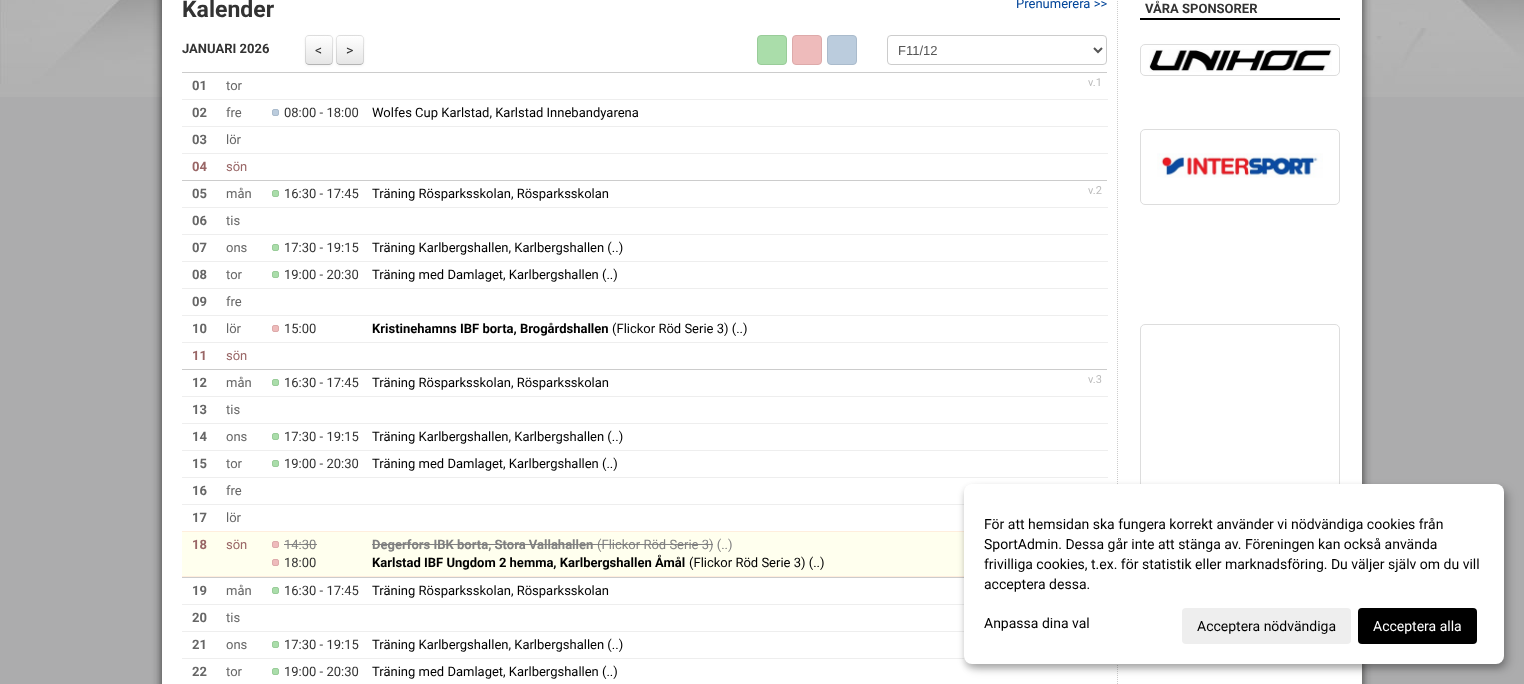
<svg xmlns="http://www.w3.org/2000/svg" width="1524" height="684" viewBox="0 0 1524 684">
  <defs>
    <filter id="blur1" x="-50%" y="-200%" width="200%" height="500%"><feGaussianBlur stdDeviation="5"/></filter>
    <filter id="blur2" x="-50%" y="-200%" width="200%" height="500%"><feGaussianBlur stdDeviation="1"/></filter>
    <clipPath id="clip1"><rect x="305" y="35" width="28" height="30" rx="4"/></clipPath>
    <linearGradient id="g1" gradientUnits="userSpaceOnUse" x1="319" y1="36" x2="319" y2="64"><stop offset="0" stop-color="#ffffff"/><stop offset="1" stop-color="#e6e6e6"/></linearGradient>
    <clipPath id="clip2"><rect x="336" y="35" width="28" height="30" rx="4"/></clipPath>
    <linearGradient id="g2" gradientUnits="userSpaceOnUse" x1="350" y1="36" x2="350" y2="64"><stop offset="0" stop-color="#ffffff"/><stop offset="1" stop-color="#e6e6e6"/></linearGradient>
    <filter id="blur3" x="-50%" y="-200%" width="200%" height="500%"><feGaussianBlur stdDeviation="3"/></filter>
  </defs>
  <rect width="100%" height="100%" fill="#acacad"/>
  <image x="0" y="0" width="1524" height="97" href="img1.png"/>
  <rect x="162" y="-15" width="1200" height="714" fill="#333333" filter="url(#blur1)"/>
  <rect x="162" y="0" width="1200" height="684" fill="#ffffff"/>
  <text x="182" y="17" font-family="Roboto" font-size="23" font-weight="bold" fill="#333333">Kalender</text>
  <text x="1016" y="8" font-family="Roboto" font-size="13" fill="#004499">Prenumerera &gt;&gt;</text>
  <text x="182" y="53" font-family="Roboto" font-size="13" font-weight="bold" fill="#333333">JANUARI 2026</text>
  <rect x="305" y="36" width="28" height="30" rx="4" fill="#000000" fill-opacity="0.05" filter="url(#blur2)"/>
  <rect x="305" y="35" width="28" height="30" rx="4" fill="#f5f5f5"/>
  <g clip-path="url(#clip1)">
    <rect x="305" y="36" width="28" height="28" fill="url(#g1)"/>
  </g>
  <path d="M331.5 63.5C331 64 330 64.5 329 64.5H309C308 64.5 307 64 306.5 63.5" fill="none" stroke="#b3b3b3"/>
  <path d="M306.5 63.5C305 62 305.5 59 305.5 57.5V50C305.5 34 303 35.5 319 35.5C335 35.5 332.5 34 332.5 50V57.5C332.5 59 333 62 331.5 63.5" fill="none" stroke="#000000" stroke-opacity="0.1"/>
  <text x="315" y="55" font-family="Roboto" font-size="14" fill="#333333">&lt;</text>
  <rect x="336" y="36" width="28" height="30" rx="4" fill="#000000" fill-opacity="0.05" filter="url(#blur2)"/>
  <rect x="336" y="35" width="28" height="30" rx="4" fill="#f5f5f5"/>
  <g clip-path="url(#clip2)">
    <rect x="336" y="36" width="28" height="28" fill="url(#g2)"/>
  </g>
  <path d="M362.5 63.5C362 64 361 64.5 360 64.5H340C339 64.5 338 64 337.5 63.5" fill="none" stroke="#b3b3b3"/>
  <path d="M337.5 63.5C336 62 336.5 59 336.5 57.5V50C336.5 34 334 35.5 350 35.5C366 35.5 363.5 34 363.5 50V57.5C363.5 59 364 62 362.5 63.5" fill="none" stroke="#000000" stroke-opacity="0.1"/>
  <text x="346" y="55" font-family="Roboto" font-size="14" fill="#333333">&gt;</text>
  <rect x="757.5" y="35.5" width="29" height="29" rx="3.5" fill="#aaddaa" stroke="#99cc99"/>
  <rect x="792.5" y="35.5" width="29" height="29" rx="3.5" fill="#eebbbb" stroke="#ddaaaa"/>
  <rect x="827.5" y="35.5" width="29" height="29" rx="3.5" fill="#bbccdd" stroke="#aabbcc"/>
  <rect x="887.5" y="35.5" width="219" height="29" rx="3.5" fill="none" stroke="#cccccc"/>
  <path d="M1094 48L1098 52L1102 48" fill="none" stroke="#555555" stroke-width="2"/>
  <text x="898" y="55" font-family="Liberation Sans" font-size="13" fill="#555555">F11/12</text>
  <rect x="182" y="99" width="926" height="1" fill="#eeeeee"/>
  <text x="192" y="90" font-family="Roboto" font-size="13" font-weight="bold" fill="#666666">01</text>
  <text x="226" y="90" font-family="Roboto" font-size="13" fill="#666666">tor</text>
  <rect x="182" y="126" width="926" height="1" fill="#eeeeee"/>
  <text x="192" y="117" font-family="Roboto" font-size="13" font-weight="bold" fill="#666666">02</text>
  <text x="226" y="117" font-family="Roboto" font-size="13" fill="#666666">fre</text>
  <rect x="272.5" y="109.5" width="6" height="6" rx="1.5" fill="#bbccdd" stroke="#aabbcc"/>
  <text x="284" y="117" font-family="Roboto" font-size="13" fill="#333333">08:00 - 18:00</text>
  <text x="372" y="117" font-family="Roboto" font-size="13" fill="#000000">Wolfes Cup Karlstad, Karlstad Innebandyarena</text>
  <rect x="182" y="153" width="926" height="1" fill="#eeeeee"/>
  <text x="192" y="144" font-family="Roboto" font-size="13" font-weight="bold" fill="#666666">03</text>
  <text x="226" y="144" font-family="Roboto" font-size="13" fill="#666666">lör</text>
  <text x="192" y="171" font-family="Roboto" font-size="13" font-weight="bold" fill="#996666">04</text>
  <text x="226" y="171" font-family="Roboto" font-size="13" fill="#996666">sön</text>
  <rect x="182" y="72" width="925" height="1" fill="#cccccc"/>
  <text x="1088" y="86" font-family="Roboto" font-size="11" fill="#bbbbbb">v.1</text>
  <rect x="182" y="207" width="926" height="1" fill="#eeeeee"/>
  <text x="192" y="198" font-family="Roboto" font-size="13" font-weight="bold" fill="#666666">05</text>
  <text x="226" y="198" font-family="Roboto" font-size="13" fill="#666666">mån</text>
  <rect x="272.5" y="190.5" width="6" height="6" rx="1.5" fill="#aaddaa" stroke="#99cc99"/>
  <text x="284" y="198" font-family="Roboto" font-size="13" fill="#333333">16:30 - 17:45</text>
  <text x="372" y="198" font-family="Roboto" font-size="13" fill="#000000">Träning Rösparksskolan, Rösparksskolan</text>
  <rect x="182" y="234" width="926" height="1" fill="#eeeeee"/>
  <text x="192" y="225" font-family="Roboto" font-size="13" font-weight="bold" fill="#666666">06</text>
  <text x="226" y="225" font-family="Roboto" font-size="13" fill="#666666">tis</text>
  <rect x="182" y="261" width="926" height="1" fill="#eeeeee"/>
  <text x="192" y="252" font-family="Roboto" font-size="13" font-weight="bold" fill="#666666">07</text>
  <text x="226" y="252" font-family="Roboto" font-size="13" fill="#666666">ons</text>
  <rect x="272.5" y="244.5" width="6" height="6" rx="1.5" fill="#aaddaa" stroke="#99cc99"/>
  <text x="284" y="252" font-family="Roboto" font-size="13" fill="#333333">17:30 - 19:15</text>
  <text x="372" y="252" font-family="Roboto" font-size="13" fill="#000000">Träning Karlbergshallen, Karlbergshallen (..)</text>
  <rect x="182" y="288" width="926" height="1" fill="#eeeeee"/>
  <text x="192" y="279" font-family="Roboto" font-size="13" font-weight="bold" fill="#666666">08</text>
  <text x="226" y="279" font-family="Roboto" font-size="13" fill="#666666">tor</text>
  <rect x="272.5" y="271.5" width="6" height="6" rx="1.5" fill="#aaddaa" stroke="#99cc99"/>
  <text x="284" y="279" font-family="Roboto" font-size="13" fill="#333333">19:00 - 20:30</text>
  <text x="372" y="279" font-family="Roboto" font-size="13" fill="#000000">Träning med Damlaget, Karlbergshallen (..)</text>
  <rect x="182" y="315" width="926" height="1" fill="#eeeeee"/>
  <text x="192" y="306" font-family="Roboto" font-size="13" font-weight="bold" fill="#666666">09</text>
  <text x="226" y="306" font-family="Roboto" font-size="13" fill="#666666">fre</text>
  <rect x="182" y="342" width="926" height="1" fill="#eeeeee"/>
  <text x="192" y="333" font-family="Roboto" font-size="13" font-weight="bold" fill="#666666">10</text>
  <text x="226" y="333" font-family="Roboto" font-size="13" fill="#666666">lör</text>
  <rect x="272.5" y="325.5" width="6" height="6" rx="1.5" fill="#eebbbb" stroke="#ddaaaa"/>
  <text x="284" y="333" font-family="Roboto" font-size="13" fill="#333333">15:00</text>
  <text x="372" y="333" font-family="Roboto" font-size="13" font-weight="bold" fill="#000000">Kristinehamns IBF borta, Brogårdshallen</text>
  <text x="612" y="333" font-family="Roboto" font-size="13" fill="#000000">(Flickor Röd Serie 3) (..)</text>
  <text x="192" y="360" font-family="Roboto" font-size="13" font-weight="bold" fill="#996666">11</text>
  <text x="226" y="360" font-family="Roboto" font-size="13" fill="#996666">sön</text>
  <rect x="182" y="180" width="925" height="1" fill="#cccccc"/>
  <text x="1088" y="194" font-family="Roboto" font-size="11" fill="#bbbbbb">v.2</text>
  <rect x="182" y="396" width="926" height="1" fill="#eeeeee"/>
  <text x="192" y="387" font-family="Roboto" font-size="13" font-weight="bold" fill="#666666">12</text>
  <text x="226" y="387" font-family="Roboto" font-size="13" fill="#666666">mån</text>
  <rect x="272.5" y="379.5" width="6" height="6" rx="1.5" fill="#aaddaa" stroke="#99cc99"/>
  <text x="284" y="387" font-family="Roboto" font-size="13" fill="#333333">16:30 - 17:45</text>
  <text x="372" y="387" font-family="Roboto" font-size="13" fill="#000000">Träning Rösparksskolan, Rösparksskolan</text>
  <rect x="182" y="423" width="926" height="1" fill="#eeeeee"/>
  <text x="192" y="414" font-family="Roboto" font-size="13" font-weight="bold" fill="#666666">13</text>
  <text x="226" y="414" font-family="Roboto" font-size="13" fill="#666666">tis</text>
  <rect x="182" y="450" width="926" height="1" fill="#eeeeee"/>
  <text x="192" y="441" font-family="Roboto" font-size="13" font-weight="bold" fill="#666666">14</text>
  <text x="226" y="441" font-family="Roboto" font-size="13" fill="#666666">ons</text>
  <rect x="272.5" y="433.5" width="6" height="6" rx="1.5" fill="#aaddaa" stroke="#99cc99"/>
  <text x="284" y="441" font-family="Roboto" font-size="13" fill="#333333">17:30 - 19:15</text>
  <text x="372" y="441" font-family="Roboto" font-size="13" fill="#000000">Träning Karlbergshallen, Karlbergshallen (..)</text>
  <rect x="182" y="477" width="926" height="1" fill="#eeeeee"/>
  <text x="192" y="468" font-family="Roboto" font-size="13" font-weight="bold" fill="#666666">15</text>
  <text x="226" y="468" font-family="Roboto" font-size="13" fill="#666666">tor</text>
  <rect x="272.5" y="460.5" width="6" height="6" rx="1.5" fill="#aaddaa" stroke="#99cc99"/>
  <text x="284" y="468" font-family="Roboto" font-size="13" fill="#333333">19:00 - 20:30</text>
  <text x="372" y="468" font-family="Roboto" font-size="13" fill="#000000">Träning med Damlaget, Karlbergshallen (..)</text>
  <rect x="182" y="504" width="782" height="1" fill="#eeeeee"/>
  <text x="192" y="495" font-family="Roboto" font-size="13" font-weight="bold" fill="#666666">16</text>
  <text x="226" y="495" font-family="Roboto" font-size="13" fill="#666666">fre</text>
  <rect x="182" y="531" width="782" height="1" fill="#ffeedd"/>
  <text x="192" y="522" font-family="Roboto" font-size="13" font-weight="bold" fill="#666666">17</text>
  <text x="226" y="522" font-family="Roboto" font-size="13" fill="#666666">lör</text>
  <rect x="182" y="532" width="782" height="44" fill="#ffffee"/>
  <rect x="182" y="576" width="782" height="1" fill="#ffeedd"/>
  <text x="192" y="549" font-family="Roboto" font-size="13" font-weight="bold" fill="#996666">18</text>
  <text x="226" y="549" font-family="Roboto" font-size="13" fill="#996666">sön</text>
  <rect x="272.5" y="541.5" width="6" height="6" rx="1.5" fill="#eebbbb" stroke="#ddaaaa"/>
  <text x="284" y="549" font-family="Roboto" font-size="13" fill="#808080">14:30</text>
  <rect x="284" y="544" width="33" height="1" fill="#808080"/>
  <text x="372" y="549" font-family="Roboto" font-size="13" font-weight="bold" fill="#808080">Degerfors IBK borta, Stora Vallahallen</text>
  <rect x="372" y="544" width="222" height="1" fill="#808080"/>
  <text x="597" y="549" font-family="Roboto" font-size="13" fill="#808080">(Flickor Röd Serie 3) (..)</text>
  <rect x="594" y="544" width="119" height="1" fill="#808080"/>
  <rect x="272.5" y="559.5" width="6" height="6" rx="1.5" fill="#eebbbb" stroke="#ddaaaa"/>
  <text x="284" y="567" font-family="Roboto" font-size="13" fill="#333333">18:00</text>
  <text x="372" y="567" font-family="Roboto" font-size="13" font-weight="bold" fill="#000000">Karlstad IBF Ungdom 2 hemma, Karlbergshallen Åmål</text>
  <text x="689" y="567" font-family="Roboto" font-size="13" fill="#000000">(Flickor Röd Serie 3) (..)</text>
  <rect x="182" y="369" width="925" height="1" fill="#cccccc"/>
  <text x="1088" y="383" font-family="Roboto" font-size="11" fill="#bbbbbb">v.3</text>
  <rect x="182" y="577" width="782" height="1" fill="#cccccc"/>
  <rect x="182" y="604" width="782" height="1" fill="#eeeeee"/>
  <text x="192" y="595" font-family="Roboto" font-size="13" font-weight="bold" fill="#666666">19</text>
  <text x="226" y="595" font-family="Roboto" font-size="13" fill="#666666">mån</text>
  <rect x="272.5" y="587.5" width="6" height="6" rx="1.5" fill="#aaddaa" stroke="#99cc99"/>
  <text x="284" y="595" font-family="Roboto" font-size="13" fill="#333333">16:30 - 17:45</text>
  <text x="372" y="595" font-family="Roboto" font-size="13" fill="#000000">Träning Rösparksskolan, Rösparksskolan</text>
  <rect x="182" y="631" width="782" height="1" fill="#eeeeee"/>
  <text x="192" y="622" font-family="Roboto" font-size="13" font-weight="bold" fill="#666666">20</text>
  <text x="226" y="622" font-family="Roboto" font-size="13" fill="#666666">tis</text>
  <rect x="182" y="658" width="783" height="1" fill="#eeeeee"/>
  <text x="192" y="649" font-family="Roboto" font-size="13" font-weight="bold" fill="#666666">21</text>
  <text x="226" y="649" font-family="Roboto" font-size="13" fill="#666666">ons</text>
  <rect x="272.5" y="641.5" width="6" height="6" rx="1.5" fill="#aaddaa" stroke="#99cc99"/>
  <text x="284" y="649" font-family="Roboto" font-size="13" fill="#333333">17:30 - 19:15</text>
  <text x="372" y="649" font-family="Roboto" font-size="13" fill="#000000">Träning Karlbergshallen, Karlbergshallen (..)</text>
  <text x="192" y="676" font-family="Roboto" font-size="13" font-weight="bold" fill="#666666">22</text>
  <text x="226" y="676" font-family="Roboto" font-size="13" fill="#666666">tor</text>
  <rect x="272.5" y="668.5" width="6" height="6" rx="1.5" fill="#aaddaa" stroke="#99cc99"/>
  <text x="284" y="676" font-family="Roboto" font-size="13" fill="#333333">19:00 - 20:30</text>
  <text x="372" y="676" font-family="Roboto" font-size="13" fill="#000000">Träning med Damlaget, Karlbergshallen (..)</text>
  <path d="M1117.5-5V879" fill="none" stroke="#cccccc" stroke-dasharray="1 1"/>
  <rect x="1140" y="18" width="200" height="2" fill="#000000"/>
  <text x="1145" y="13" font-family="Roboto" font-size="13" font-weight="bold" fill="#333333">VÅRA SPONSORER</text>
  <rect x="1140.5" y="44.5" width="199" height="31" rx="4.5" fill="none" stroke="#dddddd"/>
  <image x="1149" y="49" width="183" height="23" href="img2.png"/>
  <rect x="1140.5" y="129.5" width="199" height="75" rx="4.5" fill="none" stroke="#dddddd"/>
  <image x="1157" y="153" width="166" height="25" href="img3.png"/>
  <rect x="1140.5" y="324.5" width="199" height="227" rx="4.5" fill="none" stroke="#dddddd"/>
  <rect x="969" y="489" width="540" height="180" rx="8" fill="#000000" fill-opacity="0.19" filter="url(#blur1)"/>
  <rect x="964" y="488" width="540" height="180" rx="8" fill="#000000" fill-opacity="0.2" filter="url(#blur3)"/>
  <rect x="964" y="484" width="540" height="180" rx="8" fill="#ffffff"/>
  <text x="984" y="529" font-family="Roboto" font-size="14" fill="#000000">För att hemsidan ska fungera korrekt använder vi nödvändiga cookies från</text>
  <text x="984" y="549" font-family="Roboto" font-size="14" fill="#000000">SportAdmin. Dessa går inte att stänga av. Föreningen kan också använda</text>
  <text x="984" y="569" font-family="Roboto" font-size="14" fill="#000000">frivilliga cookies, t.ex. för statistik eller marknadsföring. Du väljer själv om du vill</text>
  <text x="984" y="589" font-family="Roboto" font-size="14" fill="#000000">acceptera dessa.</text>
  <text x="984" y="628" font-family="Roboto" font-size="14" fill="#000000">Anpassa dina val</text>
  <rect x="1182" y="608" width="169" height="36" rx="4" fill="#eeeeee"/>
  <text x="1197" y="631" font-family="Roboto" font-size="14" fill="#000000">Acceptera nödvändiga</text>
  <rect x="1358" y="608" width="119" height="36" rx="4" fill="#000000"/>
  <text x="1373" y="631" font-family="Roboto" font-size="14" fill="#ffffff">Acceptera alla</text>
</svg>
